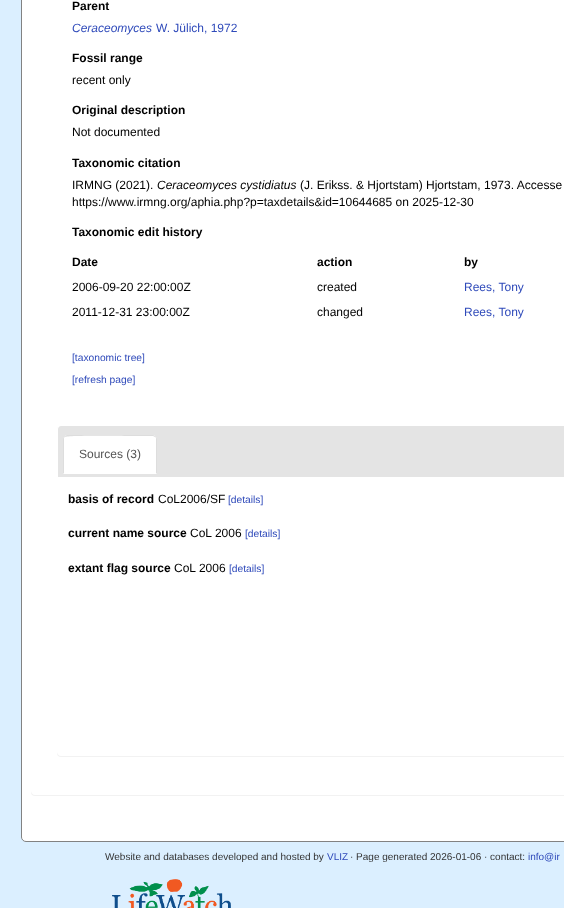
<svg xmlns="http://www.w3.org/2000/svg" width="564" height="908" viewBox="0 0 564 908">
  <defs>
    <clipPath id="clip1"><path d="M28 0H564V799H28ZM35-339H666C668-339 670-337 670-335V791C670 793 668 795 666 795H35C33 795 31 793 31 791V-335C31-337 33-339 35-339Z" clip-rule="evenodd"/></clipPath>
    <filter id="blur1" x="-50%" y="-200%" width="200%" height="500%"><feGaussianBlur stdDeviation="0.5"/></filter>
    <clipPath id="clip2"><path d="M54 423H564V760H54ZM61 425H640C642 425 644 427 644 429V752C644 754 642 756 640 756H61C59 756 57 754 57 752V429C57 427 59 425 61 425Z" clip-rule="evenodd"/></clipPath>
  </defs>
  <rect width="100%" height="100%" fill="#dbefff"/>
  <rect x="21.5" y="-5.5" width="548" height="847" rx="4.5" fill="#ffffff" stroke="#828282"/>
  <g clip-path="url(#clip1)">
    <rect x="31" y="-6" width="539" height="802" rx="4" fill="#000000" fill-opacity="0.05" filter="url(#blur1)"/>
  </g>
  <text x="72" y="10" font-family="Liberation Sans" font-size="12" font-weight="bold" fill="#000000">Parent</text>
  <text x="72" y="32" font-family="Liberation Sans" font-size="12" font-style="italic" fill="#2f4aba">Ceraceomyces</text>
  <text x="156" y="32" font-family="Liberation Sans" font-size="12" fill="#2f4aba">W. Jülich, 1972</text>
  <text x="72" y="62" font-family="Liberation Sans" font-size="12" font-weight="bold" fill="#000000">Fossil range</text>
  <text x="72" y="84" font-family="Liberation Sans" font-size="12" fill="#000000">recent only</text>
  <text x="72" y="114" font-family="Liberation Sans" font-size="12" font-weight="bold" fill="#000000">Original description</text>
  <text x="72" y="136" font-family="Liberation Sans" font-size="12" fill="#000000">Not documented</text>
  <text x="72" y="167" font-family="Liberation Sans" font-size="12" font-weight="bold" fill="#000000">Taxonomic citation</text>
  <text x="72" y="189" font-family="Liberation Sans" font-size="12" fill="#000000">IRMNG (2021).</text>
  <text x="157" y="189" font-family="Liberation Sans" font-size="12" font-style="italic" fill="#000000">Ceraceomyces cystidiatus</text>
  <text x="300" y="189" font-family="Liberation Sans" font-size="12" fill="#000000">(J. Erikss. &amp; Hjortstam) Hjortstam, 1973. Accesse</text>
  <text x="72" y="206" font-family="Liberation Sans" font-size="12" fill="#000000">https://www.irmng.org/aphia.php?p=taxdetails&amp;id=10644685 on 2025-12-30</text>
  <text x="72" y="236" font-family="Liberation Sans" font-size="12" font-weight="bold" fill="#000000">Taxonomic edit history</text>
  <text x="72" y="266" font-family="Liberation Sans" font-size="12" font-weight="bold" fill="#000000">Date</text>
  <text x="317" y="266" font-family="Liberation Sans" font-size="12" font-weight="bold" fill="#000000">action</text>
  <text x="464" y="266" font-family="Liberation Sans" font-size="12" font-weight="bold" fill="#000000">by</text>
  <text x="72" y="291" font-family="Liberation Sans" font-size="12" fill="#000000">2006-09-20 22:00:00Z</text>
  <text x="317" y="291" font-family="Liberation Sans" font-size="12" fill="#000000">created</text>
  <text x="464" y="291" font-family="Liberation Sans" font-size="12" fill="#2f4aba">Rees, Tony</text>
  <text x="72" y="316" font-family="Liberation Sans" font-size="12" fill="#000000">2011-12-31 23:00:00Z</text>
  <text x="317" y="316" font-family="Liberation Sans" font-size="12" fill="#000000">changed</text>
  <text x="464" y="316" font-family="Liberation Sans" font-size="12" fill="#2f4aba">Rees, Tony</text>
  <text x="72" y="361" font-family="Liberation Sans" font-size="10.25" fill="#2f4aba">[taxonomic tree]</text>
  <text x="72" y="383" font-family="Liberation Sans" font-size="10.25" fill="#2f4aba">[refresh page]</text>
  <g clip-path="url(#clip2)">
    <rect x="57" y="426" width="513" height="331" rx="4" fill="#000000" fill-opacity="0.05" filter="url(#blur1)"/>
  </g>
  <path d="M61 426H564C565.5 426 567 427.5 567 429V477H58V429C58 427.5 59.5 426 61 426Z" fill="#e4e4e4"/>
  <path d="M67 435H153C155 435 157 437 157 439V474H63V439C63 437 65 435 67 435Z" fill="#ffffff"/>
  <path d="M67 435L64 436L65 437C67 435 131 436 139 436H153L155 437L156 436L153 435Z" fill="#dddddd"/>
  <path d="M157 474V439C157 438 156.5 437 156 436L155 437C156 437 156 438 156 439V473Z" fill="#dddddd"/>
  <path d="M63 474L64 473V439C64 438 64 437 65 437L64 436C63.5 437 63 438 63 439Z" fill="#dddddd"/>
  <text x="79" y="458" font-family="Liberation Sans" font-size="12" fill="#555555">Sources (3)</text>
  <text x="68" y="503" font-family="Liberation Sans" font-size="12" font-weight="bold" fill="#000000">basis of record</text>
  <text x="158" y="503" font-family="Liberation Sans" font-size="12" fill="#000000">CoL2006/SF</text>
  <text x="228" y="503" font-family="Liberation Sans" font-size="10.25" fill="#2f4aba">[details]</text>
  <text x="68" y="537" font-family="Liberation Sans" font-size="12" font-weight="bold" fill="#000000">current name source</text>
  <text x="190" y="537" font-family="Liberation Sans" font-size="12" fill="#000000">CoL 2006</text>
  <text x="245" y="537" font-family="Liberation Sans" font-size="10.25" fill="#2f4aba">[details]</text>
  <text x="68" y="572" font-family="Liberation Sans" font-size="12" font-weight="bold" fill="#000000">extant flag source</text>
  <text x="174" y="572" font-family="Liberation Sans" font-size="12" fill="#000000">CoL 2006</text>
  <text x="229" y="572" font-family="Liberation Sans" font-size="10.25" fill="#2f4aba">[details]</text>
  <text x="105" y="860" font-family="Liberation Sans" font-size="10" fill="#333333">Website and databases developed and hosted by</text>
  <text x="327" y="860" font-family="Liberation Sans" font-size="10" fill="#2f4aba">VLIZ</text>
  <text x="350" y="860" font-family="Liberation Sans" font-size="10" fill="#333333">· Page generated 2026-01-06 · contact:</text>
  <text x="528" y="860" font-family="Liberation Sans" font-size="10" fill="#2f4aba">info@ir</text>
  <image x="112" y="879" width="119" height="29" href="img1.png"/>
</svg>
